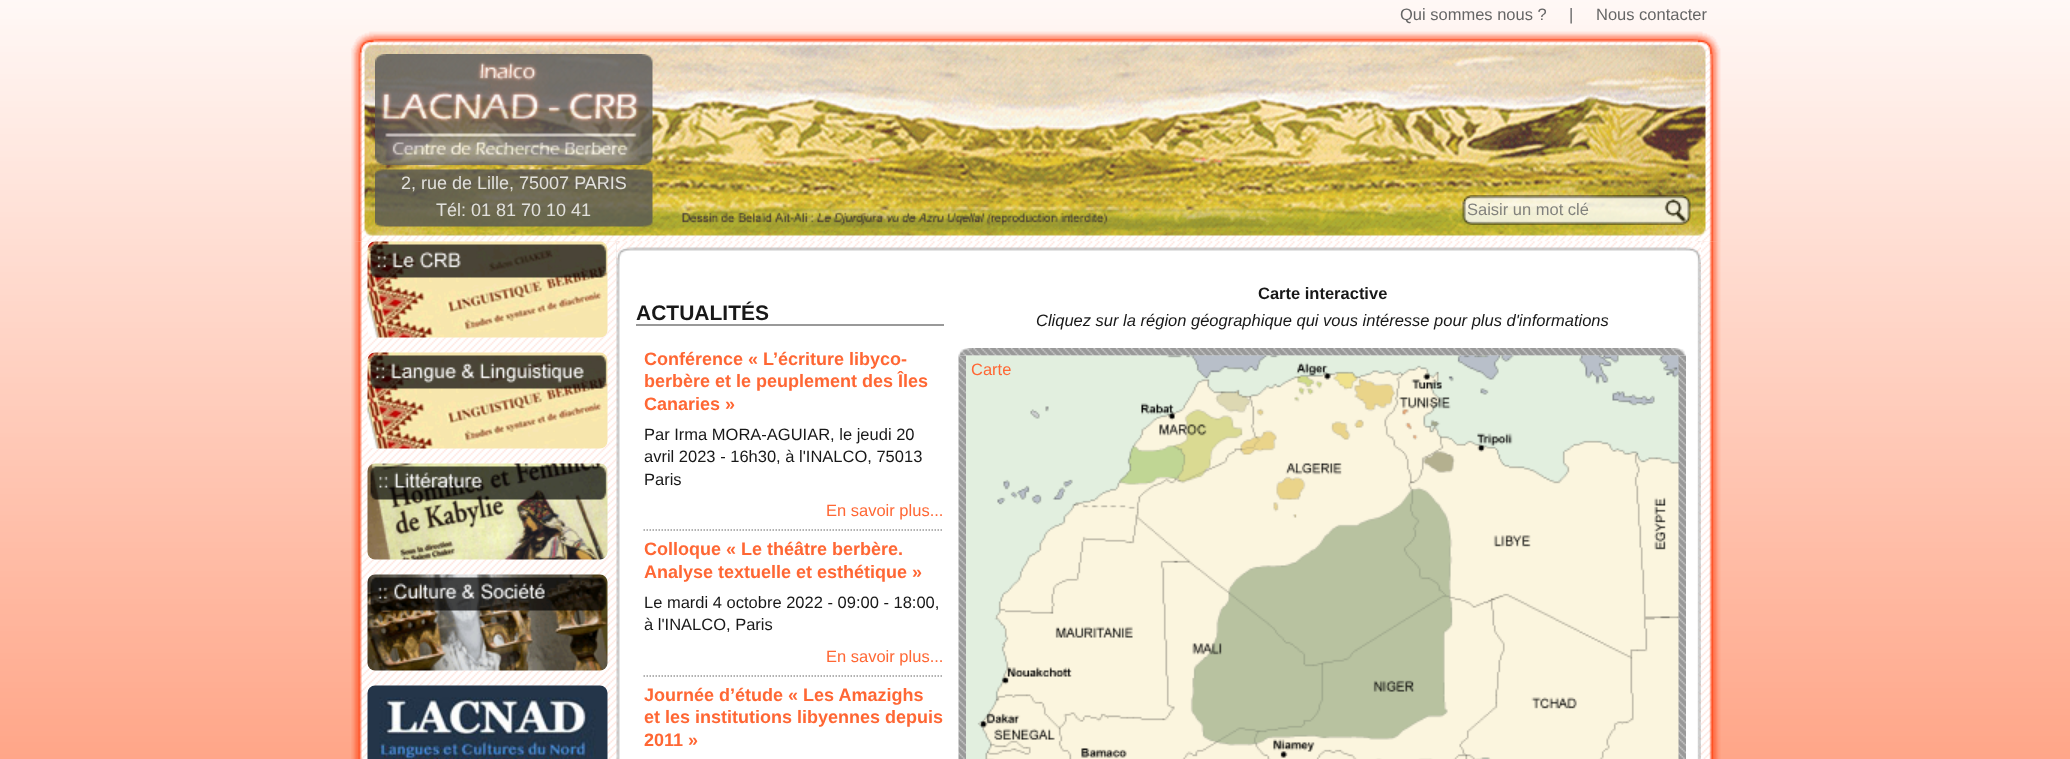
<svg xmlns="http://www.w3.org/2000/svg" width="2070" height="759" viewBox="0 0 2070 759">
  <rect width="100%" height="100%" fill="#ffffff"/>
  <image x="0" y="0" width="2070" height="759" href="img1.png"/>
  <text x="1400" y="20" font-family="Liberation Sans" font-size="16.5" fill="#666666">Qui sommes nous ?</text>
  <text x="1569" y="20" font-family="Liberation Sans" font-size="16.5" fill="#666666">|</text>
  <text x="1596" y="20" font-family="Liberation Sans" font-size="16.5" fill="#666666">Nous contacter</text>
  <image x="351" y="31" width="1370" height="211" href="img2.png"/>
  <image x="375" y="54" width="278" height="111" href="img3.png"/>
  <image x="375" y="169" width="278" height="58" href="img4.png"/>
  <text x="401" y="189" font-family="Liberation Sans" font-size="18" fill="#e1e0dc">2, rue de Lille, 75007 PARIS</text>
  <text x="436" y="216" font-family="Liberation Sans" font-size="18" fill="#e1e0dc">Tél: 01 81 70 10 41</text>
  <image x="1462" y="195" width="229" height="30" href="img5.png"/>
  <text x="1467" y="215" font-family="Liberation Sans" font-size="16.5" fill="#82827d">Saisir un mot clé</text>
  <image x="351" y="241" width="1370" height="518" href="img6.png"/>
  <image x="367" y="241" width="241" height="97" href="img7.png"/>
  <image x="367" y="352" width="241" height="97" href="img8.png"/>
  <image x="367" y="463" width="241" height="97" href="img9.png"/>
  <image x="367" y="574" width="241" height="97" href="img10.png"/>
  <image x="367" y="685" width="241" height="74" href="img11.png"/>
  <image x="616" y="241" width="1085" height="518" href="img12.png"/>
  <image x="616" y="241" width="1085" height="23" href="img13.png"/>
  <rect x="636" y="324" width="308" height="2" fill="#999999"/>
  <text x="636" y="320" font-family="Liberation Sans" font-size="21" font-weight="bold" fill="#181818">ACTUALITÉS</text>
  <path d="M643.5 530H943.5" fill="none" stroke="#999999" stroke-width="1.5" stroke-dasharray="1.5 1.5"/>
  <text x="644" y="365" font-family="Liberation Sans" font-size="18" font-weight="bold" fill="#ff6734">Conférence « L’écriture libyco-</text>
  <text x="644" y="387" font-family="Liberation Sans" font-size="18" font-weight="bold" fill="#ff6734">berbère et le peuplement des Îles</text>
  <text x="644" y="410" font-family="Liberation Sans" font-size="18" font-weight="bold" fill="#ff6734">Canaries »</text>
  <text x="644" y="440" font-family="Liberation Sans" font-size="16.5" fill="#181818">Par Irma MORA-AGUIAR, le jeudi 20</text>
  <text x="644" y="462" font-family="Liberation Sans" font-size="16.5" fill="#181818">avril 2023 - 16h30, à l'INALCO, 75013</text>
  <text x="644" y="485" font-family="Liberation Sans" font-size="16.5" fill="#181818">Paris</text>
  <text x="826" y="516" font-family="Liberation Sans" font-size="16.5" fill="#ff6734">En savoir plus...</text>
  <path d="M643.5 676H943.5" fill="none" stroke="#999999" stroke-width="1.5" stroke-dasharray="1.5 1.5"/>
  <text x="644" y="555" font-family="Liberation Sans" font-size="18" font-weight="bold" fill="#ff6734">Colloque « Le théâtre berbère.</text>
  <text x="644" y="578" font-family="Liberation Sans" font-size="18" font-weight="bold" fill="#ff6734">Analyse textuelle et esthétique »</text>
  <text x="644" y="608" font-family="Liberation Sans" font-size="16.5" fill="#181818">Le mardi 4 octobre 2022 - 09:00 - 18:00,</text>
  <text x="644" y="630" font-family="Liberation Sans" font-size="16.5" fill="#181818">à l'INALCO, Paris</text>
  <text x="826" y="662" font-family="Liberation Sans" font-size="16.5" fill="#ff6734">En savoir plus...</text>
  <text x="644" y="701" font-family="Liberation Sans" font-size="18" font-weight="bold" fill="#ff6734">Journée d’étude « Les Amazighs</text>
  <text x="644" y="723" font-family="Liberation Sans" font-size="18" font-weight="bold" fill="#ff6734">et les institutions libyennes depuis</text>
  <text x="644" y="746" font-family="Liberation Sans" font-size="18" font-weight="bold" fill="#ff6734">2011 »</text>
  <text x="1258" y="299" font-family="Liberation Sans" font-size="16.5" font-weight="bold" fill="#181818">Carte interactive</text>
  <text x="1036" y="326" font-family="Liberation Sans" font-size="16.5" font-style="italic" fill="#181818">Cliquez sur la région géographique qui vous intéresse pour plus d'informations</text>
  <image x="958" y="348" width="728" height="8" href="img14.png"/>
  <image x="958" y="355" width="728" height="404" href="img15.png"/>
  <image x="966" y="355" width="713" height="404" href="img16.png"/>
  <text x="971" y="375" font-family="Liberation Sans" font-size="16.5" fill="#ff6734">Carte</text>
</svg>
